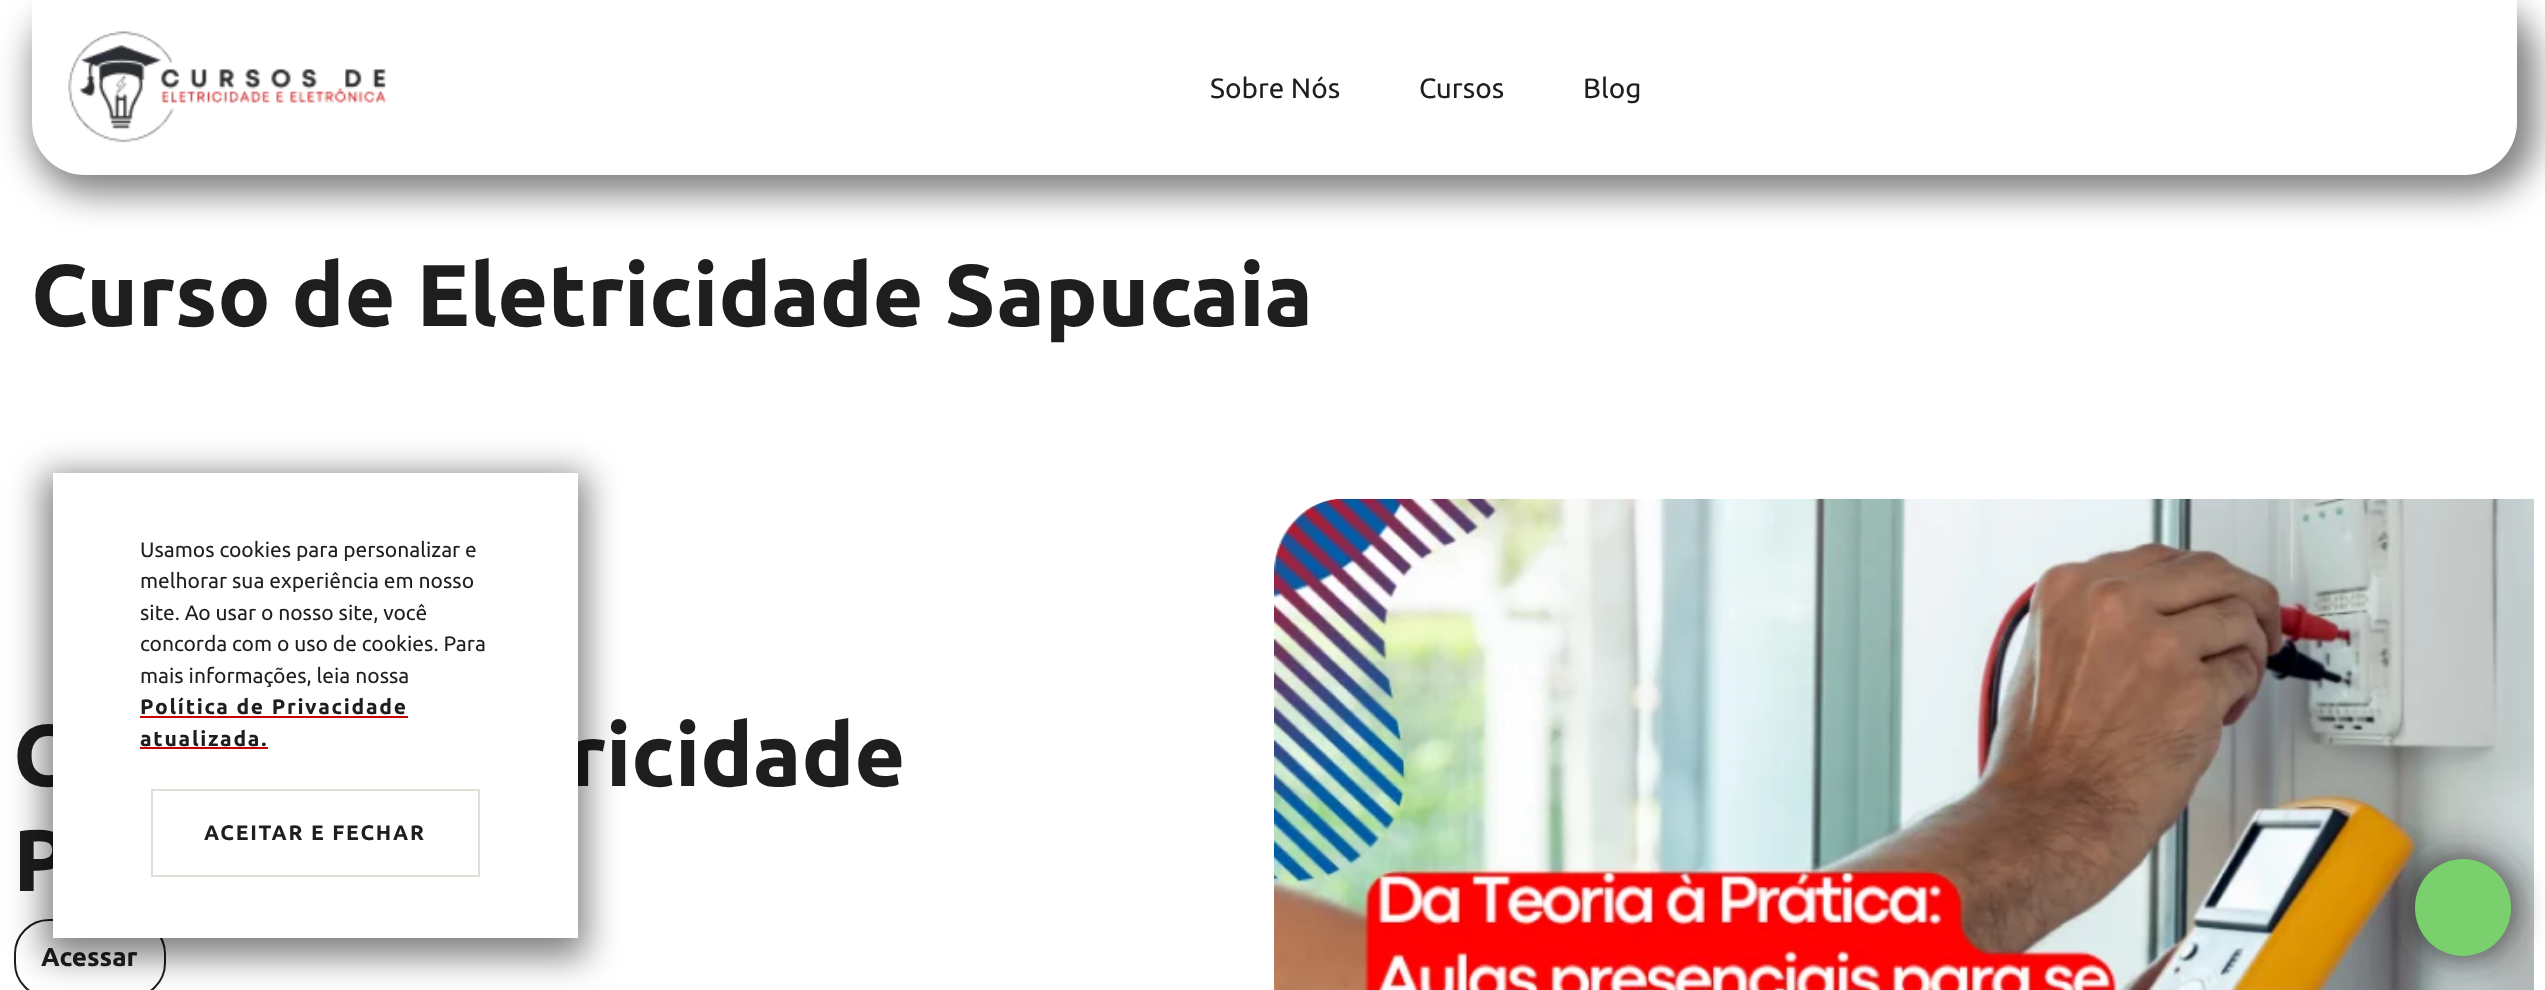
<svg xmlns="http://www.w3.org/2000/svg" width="2545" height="990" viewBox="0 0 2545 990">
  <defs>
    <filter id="blur1" x="-50%" y="-200%" width="200%" height="500%"><feGaussianBlur stdDeviation="17.5"/></filter>
  </defs>
  <rect width="100%" height="100%" fill="#ffffff"/>
  <rect x="33" y="2" width="2503" height="192" rx="61" fill="#000000" fill-opacity="0.5" filter="url(#blur1)"/>
  <path d="M32 0H2517V122C2517 151.5 2493.5 175 2464 175H85C55.5 175 32 151.5 32 122Z" fill="#ffffff"/>
  <image x="68" y="31" width="318" height="112" href="img1.png"/>
  <text x="1210" y="98" font-family="Ubuntu" font-size="28" fill="#1e1e1e">Sobre Nós</text>
  <text x="1419" y="98" font-family="Ubuntu" font-size="28" fill="#1e1e1e">Cursos</text>
  <text x="1583" y="98" font-family="Ubuntu" font-size="28" fill="#1e1e1e">Blog</text>
  <text x="31" y="326" font-family="Ubuntu" font-size="87.5" font-weight="bold" fill="#1e1e1e">Curso de Eletricidade Sapucaia</text>
  <text x="13" y="786" font-family="Ubuntu" font-size="87.5" font-weight="bold" fill="#1e1e1e">C</text>
  <text x="569" y="786" font-family="Ubuntu" font-size="87.5" font-weight="bold" fill="#1e1e1e">ricidade</text>
  <text x="13" y="891" font-family="Ubuntu" font-size="87.5" font-weight="bold" fill="#1e1e1e">P</text>
  <rect x="15" y="920" width="150" height="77" rx="34" fill="none" stroke="#1e1e1e" stroke-width="2"/>
  <text x="41" y="966" font-family="Ubuntu" font-size="26" font-weight="bold" fill="#1e1e1e">Acessar</text>
  <image x="1274" y="498" width="1260" height="492" href="img2.png"/>
  <rect x="44" y="474" width="542" height="483" fill="#000000" fill-opacity="0.5" filter="url(#blur1)"/>
  <rect x="53" y="473" width="525" height="465" fill="#ffffff"/>
  <text x="140" y="557" font-family="Ubuntu" font-size="21" fill="#1e1e1e">Usamos cookies para personalizar e</text>
  <text x="140" y="588" font-family="Ubuntu" font-size="21" fill="#1e1e1e">melhorar sua experiência em nosso</text>
  <text x="140" y="620" font-family="Ubuntu" font-size="21" fill="#1e1e1e">site. Ao usar o nosso site, você</text>
  <text x="140" y="651" font-family="Ubuntu" font-size="21" fill="#1e1e1e">concorda com o uso de cookies. Para</text>
  <text x="140" y="683" font-family="Ubuntu" font-size="21" fill="#1e1e1e">mais informações, leia nossa</text>
  <text x="140" y="714" font-family="Ubuntu" font-size="21" font-weight="bold" letter-spacing="1.75" fill="#1e1e1e">Política de Privacidade</text>
  <rect x="140" y="716" width="268" height="2" fill="#c80000"/>
  <text x="140" y="746" font-family="Ubuntu" font-size="21" font-weight="bold" letter-spacing="1.75" fill="#1e1e1e">atualizada.</text>
  <rect x="140" y="747" width="128" height="2" fill="#c80000"/>
  <rect x="152" y="790" width="327" height="86" fill="none" stroke="#e1ded7" stroke-width="2"/>
  <text x="204" y="840" font-family="Ubuntu" font-size="21" font-weight="bold" letter-spacing="1.75" fill="#1e1e1e">ACEITAR E FECHAR</text>
  <rect x="2415" y="859" width="96" height="97" rx="48" fill="#2f2f2f" filter="url(#blur1)"/>
  <rect x="2415" y="859" width="96" height="97" rx="48" fill="#7ad06d"/>
</svg>
